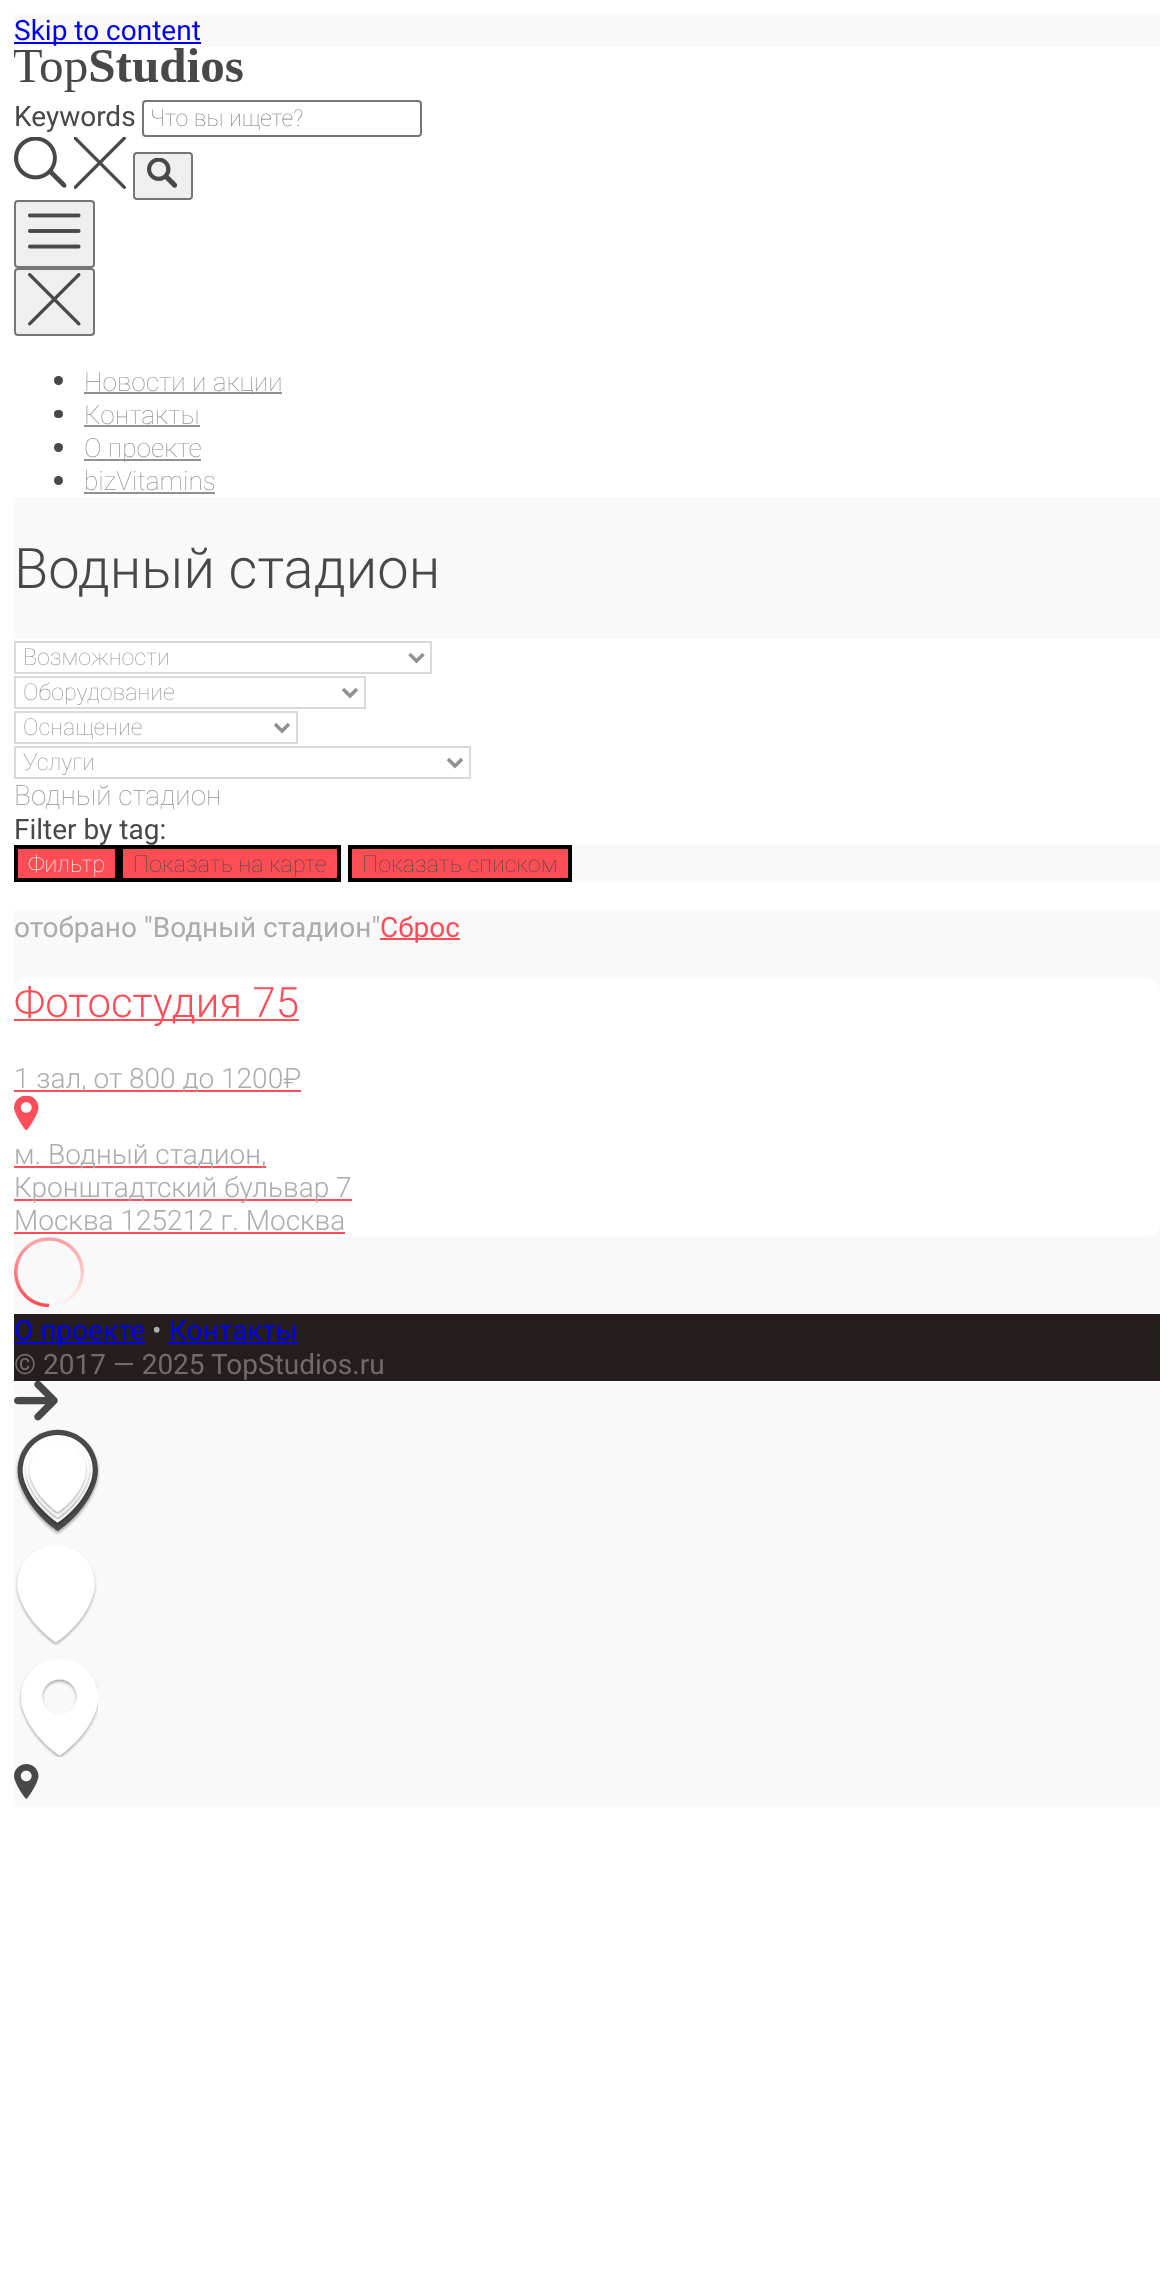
<svg xmlns="http://www.w3.org/2000/svg" width="1174" height="2293" viewBox="0 0 1174 2293">
  <rect width="100%" height="100%" fill="#ffffff"/>
  <rect x="14" y="14" width="1146" height="1792" fill="#f9f9f9"/>
  <rect x="14" y="42" width="187" height="2" fill="#0000ee"/>
  <text x="14" y="40" font-family="Roboto" font-size="28" fill="#0000ee">Skip to content</text>
  <rect x="14" y="47" width="1146" height="450" fill="#ffffff"/>
  <image x="14" y="48" width="229" height="44" href="img1.png"/>
  <text x="14" y="126" font-family="Roboto" font-size="28" fill="#484848">Keywords</text>
  <rect x="143" y="101" width="278" height="35" rx="3" fill="none" stroke="#767676" stroke-width="2"/>
  <text x="150" y="126" font-family="Roboto" font-size="23.25" font-weight="100" fill="#757575">Что вы ищете?</text>
  <image x="14" y="137" width="53" height="51" href="img2.png"/>
  <image x="74" y="137" width="52" height="52" href="img3.png"/>
  <rect x="134" y="153" width="58" height="46" rx="3" fill="#efefef" stroke="#767676" stroke-width="2"/>
  <image x="147" y="158" width="31" height="30" href="img4.png"/>
  <rect x="15" y="201" width="79" height="66" rx="3" fill="#efefef" stroke="#767676" stroke-width="2"/>
  <image x="28" y="213" width="53" height="36" href="img5.png"/>
  <rect x="15" y="269" width="79" height="66" rx="3" fill="#efefef" stroke="#767676" stroke-width="2"/>
  <image x="28" y="273" width="53" height="53" href="img6.png"/>
  <circle cx="58.5" cy="380.5" r="4.5" fill="#484848"/>
  <rect x="84" y="392" width="198" height="2" fill="#919191"/>
  <text x="84" y="391" font-family="Roboto" font-size="26.25" font-weight="100" fill="#919191">Новости и акции</text>
  <rect x="54" y="410" width="9" height="8" rx="4" fill="#484848"/>
  <text x="84" y="424" font-family="Roboto" font-size="26.25" font-weight="100" fill="#919191">Контакты</text>
  <rect x="84" y="425" width="116" height="2" fill="#919191"/>
  <circle cx="58.5" cy="447.5" r="4.5" fill="#484848"/>
  <rect x="84" y="459" width="117" height="2" fill="#919191"/>
  <text x="84" y="457" font-family="Roboto" font-size="26.25" font-weight="100" fill="#919191">О проекте</text>
  <circle cx="58.5" cy="480.5" r="4.5" fill="#484848"/>
  <text x="84" y="490" font-family="Roboto" font-size="26.25" font-weight="100" fill="#919191">bizVitamins</text>
  <rect x="84" y="492" width="131" height="2" fill="#919191"/>
  <text x="14" y="588" font-family="Roboto" font-size="56" font-weight="300" fill="#484848">Водный стадион</text>
  <rect x="14" y="639" width="1146" height="271" fill="#ffffff"/>
  <rect x="15" y="642" width="416" height="31" fill="none" stroke="#dadada" stroke-width="2"/>
  <path d="M409.5 654L416.5 661L423.5 654" fill="none" stroke="#919191" stroke-width="3.5"/>
  <text x="23" y="665" font-family="Roboto" font-size="23.25" font-weight="100" fill="#919191">Возможности</text>
  <rect x="15" y="677" width="350" height="31" fill="none" stroke="#dadada" stroke-width="2"/>
  <path d="M343 689L350 696L357 689" fill="none" stroke="#919191" stroke-width="3.5"/>
  <text x="23" y="700" font-family="Roboto" font-size="23.25" font-weight="100" fill="#919191">Оборудование</text>
  <rect x="15" y="712" width="282" height="31" fill="none" stroke="#dadada" stroke-width="2"/>
  <path d="M275 724L282 731L289 724" fill="none" stroke="#919191" stroke-width="3.5"/>
  <text x="23" y="735" font-family="Roboto" font-size="23.25" font-weight="100" fill="#919191">Оснащение</text>
  <rect x="15" y="747" width="455" height="31" fill="none" stroke="#dadada" stroke-width="2"/>
  <path d="M448 759L455 766L462 759" fill="none" stroke="#919191" stroke-width="3.5"/>
  <text x="23" y="770" font-family="Roboto" font-size="23.25" font-weight="100" fill="#919191">Услуги</text>
  <text x="14" y="805" font-family="Roboto" font-size="28" font-weight="100" fill="#919191">Водный стадион</text>
  <text x="14" y="839" font-family="Roboto" font-size="28" fill="#484848">Filter by tag:</text>
  <rect x="341" y="845" width="819" height="37" fill="#f9f9f9"/>
  <rect x="16" y="847" width="101" height="33" fill="#ff4d55" stroke="#000000" stroke-width="4"/>
  <text x="28" y="872" font-family="Roboto" font-size="23.25" font-weight="100" fill="#ffffff">Фильтр</text>
  <rect x="121" y="847" width="218" height="33" fill="#ff4d55" stroke="#000000" stroke-width="4"/>
  <text x="133" y="872" font-family="Roboto" font-size="23.25" font-weight="100" fill="#484848">Показать на карте</text>
  <rect x="350" y="847" width="220" height="33" fill="#ff4d55" stroke="#000000" stroke-width="4"/>
  <text x="362" y="872" font-family="Roboto" font-size="23.25" font-weight="100" fill="#484848">Показать списком</text>
  <text x="14" y="937" font-family="Roboto" font-size="28" fill="#ababab">отобрано "Водный стадион"</text>
  <rect x="380" y="938" width="80" height="2" fill="#ff4d58"/>
  <text x="380" y="937" font-family="Roboto" font-size="28" fill="#ff4d58">Сброс</text>
  <rect x="14" y="978" width="1146" height="259" rx="14" fill="#ffffff"/>
  <rect x="14" y="1019" width="285" height="2" fill="#ff4d58"/>
  <text x="14" y="1017" font-family="Roboto" font-size="42" font-weight="300" fill="#ff4d58">Фотостудия 75</text>
  <rect x="14" y="1090" width="287" height="2" fill="#ff4d58"/>
  <text x="14" y="1088" font-family="Roboto" font-size="28" font-weight="300" fill="#ababab">1 зал, от 800 до 1200₽</text>
  <image x="14" y="1096" width="25" height="35" href="img7.png"/>
  <rect x="14" y="1166" width="252" height="2" fill="#ff4d58"/>
  <text x="14" y="1164" font-family="Roboto" font-size="28" font-weight="300" fill="#ababab">м. Водный стадион,</text>
  <rect x="14" y="1199" width="338" height="2" fill="#ff4d58"/>
  <text x="14" y="1197" font-family="Roboto" font-size="28" font-weight="300" fill="#ababab">Кронштадтский бульвар 7</text>
  <text x="14" y="1230" font-family="Roboto" font-size="28" font-weight="300" fill="#ababab">Москва 125212 г. Москва</text>
  <rect x="14" y="1232" width="331" height="2" fill="#ff4d58"/>
  <image x="14" y="1237" width="70" height="70" href="img8.png"/>
  <rect x="14" y="1314" width="1146" height="67" fill="#261e1e"/>
  <rect x="14" y="1342" width="131" height="2" fill="#0000ee"/>
  <text x="14" y="1340" font-family="Roboto" font-size="28" fill="#0000ee">О проекте</text>
  <text x="152" y="1340" font-family="Roboto" font-size="28" fill="#adadb2">•</text>
  <text x="169" y="1340" font-family="Roboto" font-size="28" fill="#0000ee">Контакты</text>
  <rect x="168" y="1342" width="130" height="2" fill="#0000ee"/>
  <text x="14" y="1374" font-family="Roboto" font-size="28" fill="#706c6c">© 2017 — 2025 TopStudios.ru</text>
  <image x="14" y="1381" width="44" height="40" href="img9.png"/>
  <image x="15" y="1429" width="85" height="106" href="img10.png"/>
  <image x="15" y="1546" width="82" height="100" href="img11.png"/>
  <image x="19" y="1659" width="79" height="98" href="img12.png"/>
  <image x="14" y="1764" width="25" height="35" href="img13.png"/>
</svg>
